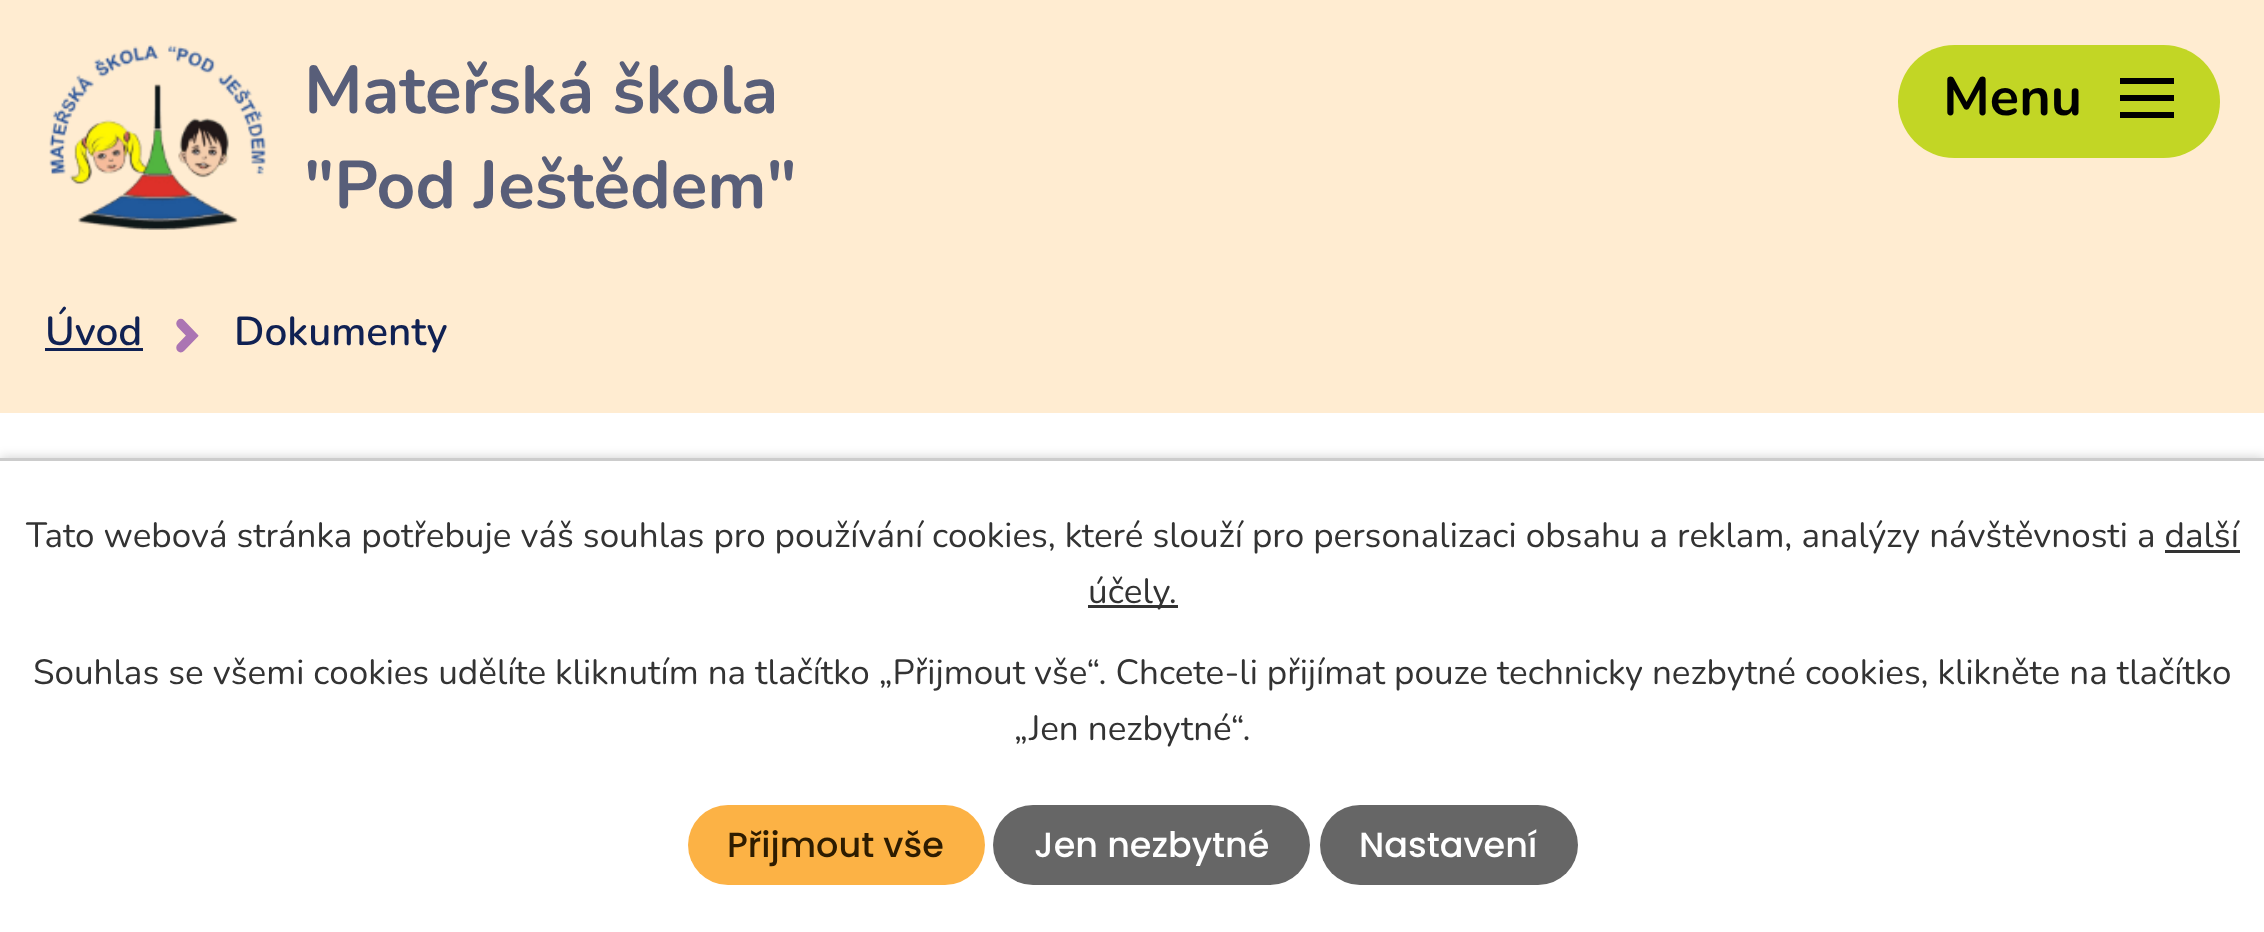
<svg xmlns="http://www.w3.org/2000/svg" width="2264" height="932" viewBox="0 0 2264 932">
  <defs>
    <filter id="blur1" x="-50%" y="-200%" width="200%" height="500%"><feGaussianBlur stdDeviation="6"/></filter>
  </defs>
  <rect width="100%" height="100%" fill="#ffffff"/>
  <rect x="0" y="0" width="2264" height="413" fill="#ffecd1"/>
  <image x="49" y="45" width="217" height="185" href="img1.png"/>
  <text x="304" y="113" font-family="Nunito" font-size="67.5" font-weight="bold" fill="#585e79">Mateřská škola</text>
  <text x="304" y="208" font-family="Nunito" font-size="67.5" font-weight="bold" fill="#585e79">"Pod Ještědem"</text>
  <rect x="1898" y="45" width="322" height="113" rx="56.5" fill="#c2d625"/>
  <text x="1943" y="115" font-family="Nunito" font-size="54" font-weight="bold" fill="#000000">Menu</text>
  <path d="M2120 118V112H2174V118ZM2120 78H2174V84H2120ZM2120 101V95H2174V101Z" fill="#000000"/>
  <text x="45" y="345" font-family="Nunito" font-size="40.5" font-weight="600" fill="#102153">Úvod</text>
  <rect x="45" y="348" width="98" height="3" fill="#102153"/>
  <image x="176" y="318" width="23" height="35" href="img2.png"/>
  <text x="234" y="345" font-family="Nunito" font-size="40.5" font-weight="600" fill="#102153">Dokumenty</text>
  <rect x="0" y="458" width="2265" height="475" fill="#000000" fill-opacity="0.2" filter="url(#blur1)"/>
  <rect x="0" y="461" width="2264" height="471" fill="#ffffff"/>
  <rect x="0" y="458" width="2264" height="3" fill="#cccccc"/>
  <text x="26" y="547" font-family="Nunito" font-size="35" fill="#333333">Tato webová stránka potřebuje váš souhlas pro používání cookies, které slouží pro personalizaci obsahu a reklam, analýzy návštěvnosti a další</text>
  <rect x="1088" y="605" width="90" height="3" fill="#333333"/>
  <text x="1088" y="603" font-family="Nunito" font-size="35" fill="#333333">účely.</text>
  <rect x="2165" y="550" width="75" height="3" fill="#333333"/>
  <text x="33" y="684" font-family="Nunito" font-size="35" fill="#333333">Souhlas se všemi cookies udělíte kliknutím na tlačítko „Přijmout vše“. Chcete-li přijímat pouze technicky nezbytné cookies, klikněte na tlačítko</text>
  <text x="1014" y="740" font-family="Nunito" font-size="35" fill="#333333">„Jen nezbytné“.</text>
  <rect x="688" y="805" width="297" height="80" rx="40" fill="#fcb245"/>
  <text x="727" y="857" font-family="Poppins" font-size="35" font-weight="500" fill="#2e1c00">Přijmout vše</text>
  <rect x="993" y="805" width="317" height="80" rx="40" fill="#666666"/>
  <text x="1034" y="857" font-family="Poppins" font-size="35" font-weight="500" fill="#ffffff">Jen nezbytné</text>
  <rect x="1320" y="805" width="258" height="80" rx="40" fill="#666666"/>
  <text x="1359" y="857" font-family="Poppins" font-size="35" font-weight="500" fill="#ffffff">Nastavení</text>
</svg>
